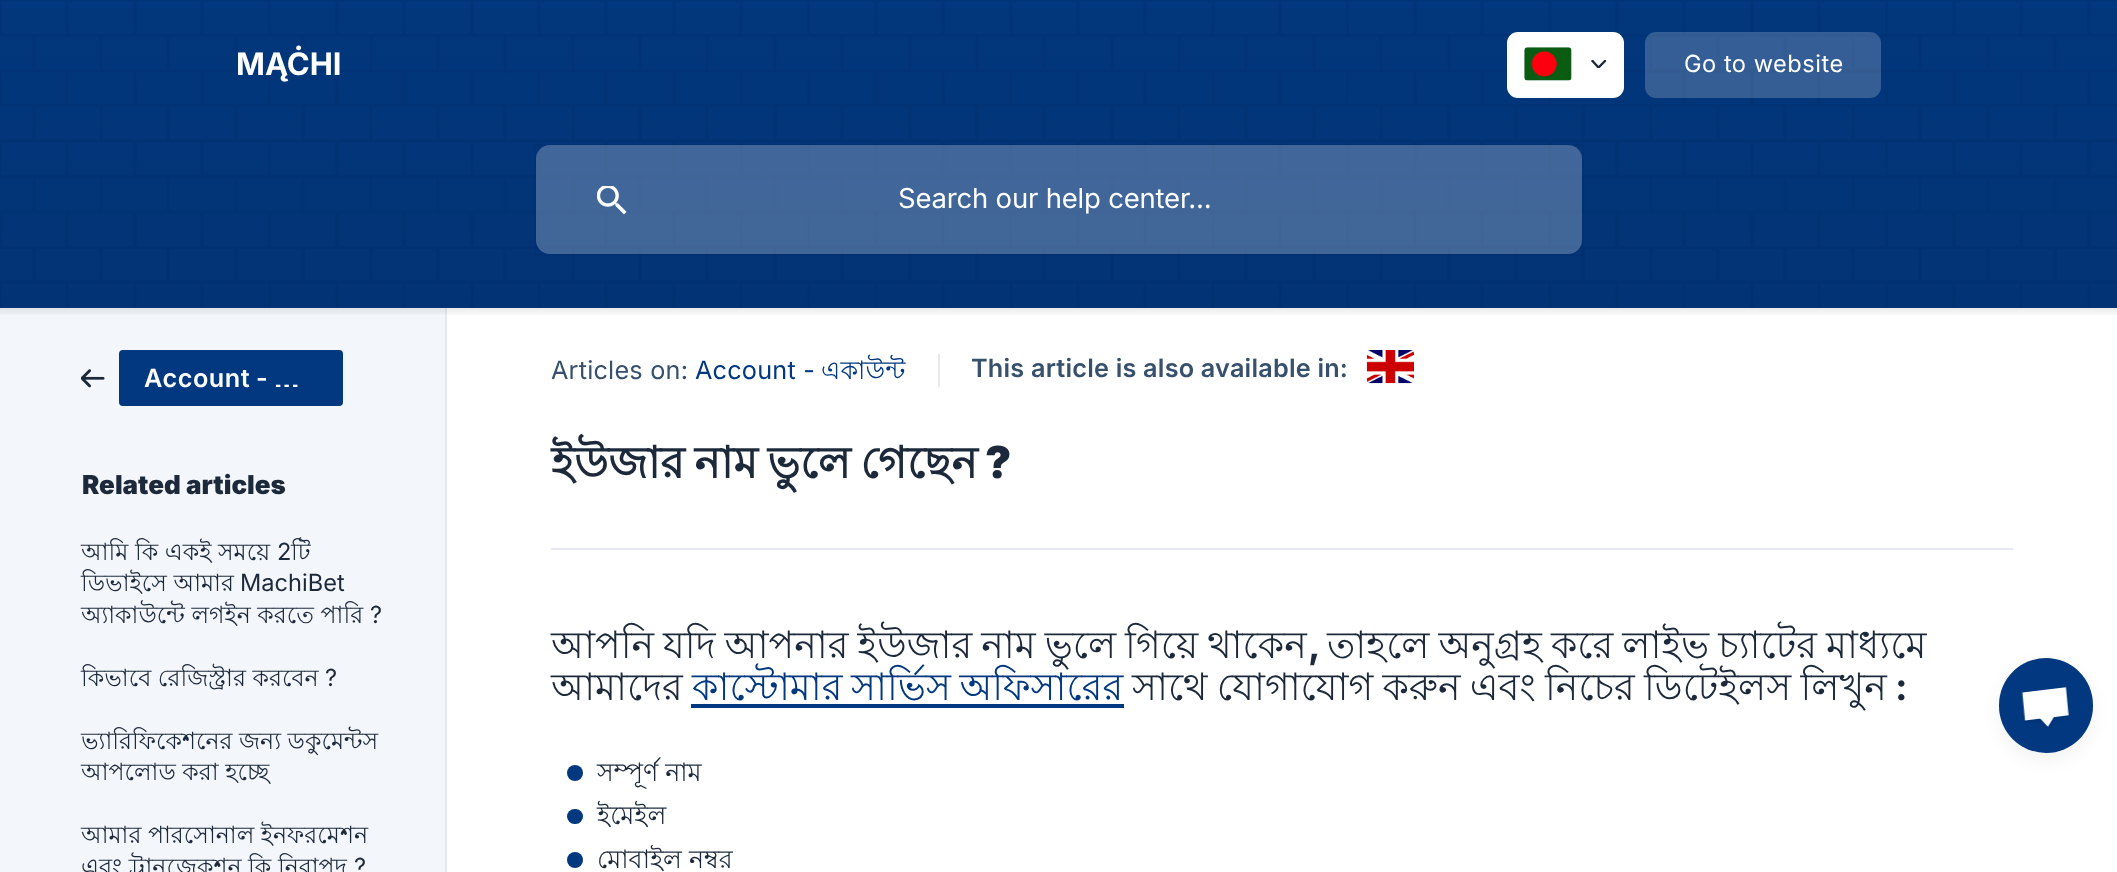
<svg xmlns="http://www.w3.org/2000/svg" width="2117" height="872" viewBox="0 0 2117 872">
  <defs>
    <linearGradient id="g1" gradientUnits="userSpaceOnUse" x1="1059" y1="0" x2="1059" y2="308"><stop offset="0" stop-color="#000000" stop-opacity="0.02"/><stop offset="0.99" stop-color="#000000" stop-opacity="0.08"/></linearGradient>
    <clipPath id="clip1"><rect x="1591" y="60" width="16" height="8"/></clipPath>
    <linearGradient id="g2" gradientUnits="userSpaceOnUse" x1="1059" y1="317" x2="1059" y2="308"><stop offset="0" stop-color="#000000" stop-opacity="0"/><stop offset="1" stop-color="#000000" stop-opacity="0.08"/></linearGradient>
    <filter id="blur1" x="-50%" y="-200%" width="200%" height="500%"><feGaussianBlur stdDeviation="9"/></filter>
  </defs>
  <rect width="100%" height="100%" fill="#f3f6fb"/>
  <rect x="0" y="0" width="2117" height="308" fill="#02387f"/>
  <image x="0" y="0" width="2117" height="308" href="img1.png"/>
  <rect x="0" y="8" width="2117" height="300" fill="url(#g1)"/>
  <text x="236" y="75" font-family="Inter" font-size="31" font-weight="bold" fill="#ffffff">MĄĊHI</text>
  <rect x="1507" y="32" width="117" height="66" rx="11" fill="#ffffff"/>
  <rect x="1524" y="47" width="48" height="34" rx="4" fill="#eff3f6"/>
  <image x="1524" y="47" width="48" height="34" href="img2.png"/>
  <g clip-path="url(#clip1)">
    <path d="M1592.5 61L1598.5 67.5L1605 61" fill="none" stroke="#1c293b" stroke-width="2.4" stroke-linecap="round" stroke-linejoin="round"/>
  </g>
  <rect x="1645" y="32" width="236" height="66" rx="11" fill="#ffffff" fill-opacity="0.2"/>
  <text x="1684" y="72" font-family="Inter" font-size="23.6" letter-spacing="0.5" fill="#ffffff">Go to website</text>
  <rect x="535" y="145" width="1048" height="110" fill="none" stroke="#000000" stroke-opacity="0.04" stroke-width="2"/>
  <rect x="536" y="145" width="1046" height="109" rx="14" fill="#ffffff" fill-opacity="0.25"/>
  <image x="597" y="186" width="30" height="29" href="img3.png"/>
  <text x="898" y="208" font-family="Inter" font-size="27.5" letter-spacing="-0.2" fill="#ffffff">Search our help center...</text>
  <rect x="447" y="308" width="1670" height="564" fill="#ffffff"/>
  <rect x="445" y="308" width="2" height="564" fill="#e5e9ef"/>
  <rect x="0" y="308" width="2117" height="7" fill="url(#g2)"/>
  <image x="81" y="369" width="24" height="19" href="img4.png"/>
  <rect x="119" y="350" width="224" height="56" rx="4" fill="#02387f"/>
  <text x="144" y="387" word-spacing="-1" font-family="Inter" font-size="25.25" font-weight="600" letter-spacing="0.5" fill="#ffffff">Account -</text>
  <text x="273" y="387" font-family="Lohit Bengali" font-size="25.25" font-weight="bold" letter-spacing="0.5" fill="#ffffff">…</text>
  <text x="82" y="494" font-family="Inter" font-size="26" font-weight="900" fill="#1c293b">Related articles</text>
  <text x="81" y="560" font-family="Lohit Bengali" font-size="23.6" fill="#1c293b">আমি কি একই সময়ে</text>
  <text x="277" y="560" font-family="Inter" font-size="23.6" fill="#1c293b">2</text>
  <text x="291" y="560" font-family="Lohit Bengali" font-size="23.6" fill="#1c293b">টি</text>
  <text x="81" y="591" font-family="Lohit Bengali" font-size="23.6" fill="#1c293b">ডিভাইসে আমার</text>
  <text x="240" y="591" font-family="Inter" font-size="23.6" fill="#1c293b">MachiBet</text>
  <text x="81" y="623" font-family="Lohit Bengali" font-size="23.6" fill="#1c293b">অ্যাকাউন্টে লগইন করতে পারি</text>
  <text x="370" y="623" font-family="Inter" font-size="23.6" fill="#1c293b">?</text>
  <text x="81" y="686" font-family="Lohit Bengali" font-size="23.6" fill="#1c293b">কিভাবে রেজিস্ট্রার করবেন</text>
  <text x="325" y="686" font-family="Inter" font-size="23.6" fill="#1c293b">?</text>
  <text x="81" y="749" font-family="Lohit Bengali" font-size="23.6" fill="#1c293b">ভ্যারিফিকেশনের জন্য ডকুমেন্টস</text>
  <text x="81" y="780" font-family="Lohit Bengali" font-size="23.6" fill="#1c293b">আপলোড করা হচ্ছে</text>
  <text x="81" y="843" font-family="Lohit Bengali" font-size="23.6" fill="#1c293b">আমার পারসোনাল ইনফরমেশন</text>
  <text x="81" y="875" font-family="Lohit Bengali" font-size="23.6" fill="#1c293b">এবং ট্রানজেকশন কি নিরাপদ</text>
  <text x="354" y="875" font-family="Inter" font-size="23.6" fill="#1c293b">?</text>
  <rect x="551" y="548" width="1462" height="2" fill="#e5e9ef"/>
  <text x="551" y="379" font-family="Inter" font-size="25.25" letter-spacing="0.2" fill="#37516c">Articles on:</text>
  <text x="695" y="379" font-family="Inter" font-size="25.25" letter-spacing="0.2" fill="#02387f">Account -</text>
  <text x="821" y="379" font-family="Lohit Bengali" font-size="25.25" letter-spacing="0.2" fill="#02387f">একাউন্ট</text>
  <rect x="938" y="354" width="2" height="33" fill="#e5e9ef"/>
  <text x="971" y="377" font-family="Inter" font-size="25.25" font-weight="600" letter-spacing="0.2" fill="#37516c">This article is also available in:</text>
  <image x="1366" y="350" width="48" height="34" href="img5.png"/>
  <text x="551" y="478" word-spacing="-2.5" font-family="Lohit Bengali" font-size="44" font-weight="bold" fill="#1c293b">ইউজার নাম ভুলে গেছেন</text>
  <text x="985" y="478" font-family="Inter" font-size="44" font-weight="900" fill="#1c293b">?</text>
  <text x="551" y="658" word-spacing="-1.5" font-family="Lohit Bengali" font-size="37.8" fill="#1c293b">আপনি যদি আপনার ইউজার নাম ভুলে গিয়ে থাকেন</text>
  <text x="1308" y="658" font-family="Inter" font-size="37.8" font-weight="bold" fill="#1c293b">,</text>
  <text x="1327" y="658" word-spacing="-1.5" font-family="Lohit Bengali" font-size="37.8" fill="#1c293b">তাহলে অনুগ্রহ করে লাইভ চ্যাটের মাধ্যমে</text>
  <text x="551" y="700" font-family="Lohit Bengali" font-size="37.8" fill="#1c293b">আমাদের</text>
  <text x="692" y="700" word-spacing="-2" font-family="Lohit Bengali" font-size="37.8" fill="#02387f">কাস্টোমার সার্ভিস অফিসারের</text>
  <rect x="691" y="704" width="433" height="4" fill="#02387f"/>
  <text x="1132" y="700" word-spacing="-1.25" font-family="Lohit Bengali" font-size="37.8" fill="#1c293b">সাথে যোগাযোগ করুন এবং নিচের ডিটেইলস লিখুন</text>
  <text x="1895" y="700" font-family="Inter" font-size="37.8" font-weight="bold" fill="#1c293b">:</text>
  <circle cx="575" cy="773" r="8" fill="#02387f"/>
  <text x="597" y="781" font-family="Lohit Bengali" font-size="25.25" fill="#1c293b">সম্পূর্ণ নাম</text>
  <rect x="567" y="809" width="16" height="15" rx="7.5" fill="#02387f"/>
  <text x="597" y="824" font-family="Lohit Bengali" font-size="25.25" fill="#1c293b">ইমেইল</text>
  <circle cx="575" cy="860" r="8" fill="#02387f"/>
  <text x="597" y="868" font-family="Lohit Bengali" font-size="25.25" fill="#1c293b">মোবাইল নম্বর</text>
  <rect x="1999" y="665" width="94" height="95" rx="47" fill="#000000" fill-opacity="0.05" filter="url(#blur1)"/>
  <rect x="1999" y="658" width="94" height="95" rx="47" fill="#02387f"/>
  <image x="2021" y="687" width="48" height="41" href="img6.png"/>
</svg>
